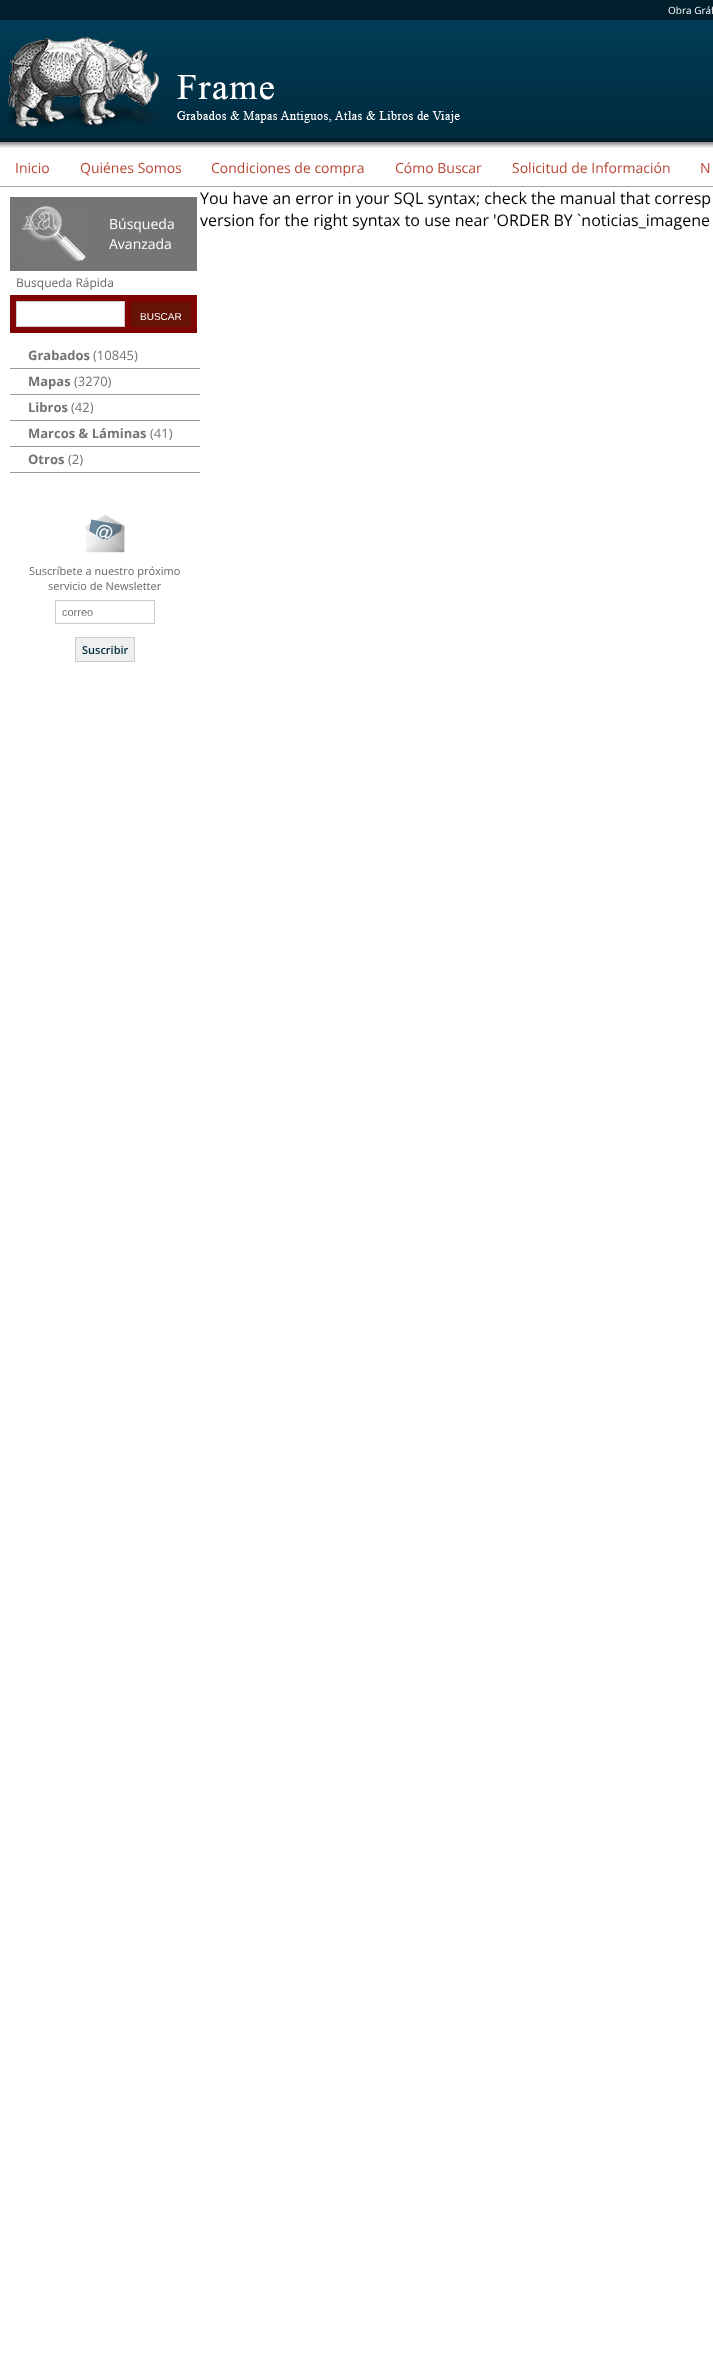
<svg xmlns="http://www.w3.org/2000/svg" width="713" height="2356" viewBox="0 0 713 2356">
  <rect width="100%" height="100%" fill="#ffffff"/>
  <rect x="0" y="0" width="713" height="20" fill="#001e2b"/>
  <text x="668" y="14" font-family="Open Sans" font-size="10" fill="#ffffff">Obra Gráf</text>
  <image x="0" y="20" width="713" height="118" href="img1.png"/>
  <image x="7" y="37" width="453" height="92" href="img2.png"/>
  <rect x="0" y="138" width="713" height="4" fill="#001e2b"/>
  <image x="0" y="142" width="713" height="6" href="img3.png"/>
  <text x="15" y="173" font-family="Open Sans" font-size="14" fill="#b74633">Inicio</text>
  <text x="80" y="173" font-family="Open Sans" font-size="14" fill="#b74633">Quiénes Somos</text>
  <text x="211" y="173" font-family="Open Sans" font-size="14" fill="#b74633">Condiciones de compra</text>
  <text x="395" y="173" font-family="Open Sans" font-size="14" fill="#b74633">Cómo Buscar</text>
  <text x="512" y="173" font-family="Open Sans" font-size="14" fill="#b74633">Solicitud de Información</text>
  <text x="700" y="173" font-family="Open Sans" font-size="14" fill="#b74633">N</text>
  <rect x="0" y="186" width="713" height="1" fill="#a4a4a4"/>
  <text x="200" y="204" font-family="Open Sans" font-size="16" fill="#000000">You have an error in your SQL syntax; check the manual that corresp</text>
  <text x="200" y="226" font-family="Open Sans" font-size="16" fill="#000000">version for the right syntax to use near 'ORDER BY `noticias_imagene</text>
  <rect x="10" y="197" width="187" height="74" fill="#757575"/>
  <image x="21" y="206" width="65" height="56" href="img4.png"/>
  <text x="109" y="229" font-family="Open Sans" font-size="14" fill="#ffffff">Búsqueda</text>
  <text x="109" y="249" font-family="Open Sans" font-size="14" fill="#ffffff">Avanzada</text>
  <text x="16" y="287" font-family="Open Sans" font-size="12" fill="#666666">Busqueda Rápida</text>
  <rect x="10" y="295" width="187" height="38" fill="#7f0303"/>
  <rect x="16.5" y="301.5" width="108" height="25" fill="#ffffff" stroke="#cccccc"/>
  <rect x="131" y="302" width="60" height="25" fill="#661207"/>
  <text x="140" y="320" font-family="Liberation Sans" font-size="10" fill="#ffffff">BUSCAR</text>
  <rect x="10" y="368" width="190" height="1" fill="#999999"/>
  <text x="28" y="360" font-family="Open Sans" font-size="13" font-weight="bold" fill="#757371">Grabados</text>
  <text x="93" y="360" font-family="Open Sans" font-size="13" fill="#757371">(10845)</text>
  <rect x="10" y="394" width="190" height="1" fill="#999999"/>
  <text x="28" y="386" font-family="Open Sans" font-size="13" font-weight="bold" fill="#757371">Mapas</text>
  <text x="74" y="386" font-family="Open Sans" font-size="13" fill="#757371">(3270)</text>
  <rect x="10" y="420" width="190" height="1" fill="#999999"/>
  <text x="28" y="412" font-family="Open Sans" font-size="13" font-weight="bold" fill="#757371">Libros</text>
  <text x="71" y="412" font-family="Open Sans" font-size="13" fill="#757371">(42)</text>
  <rect x="10" y="446" width="190" height="1" fill="#999999"/>
  <text x="28" y="438" font-family="Open Sans" font-size="13" font-weight="bold" fill="#757371">Marcos &amp; Láminas</text>
  <text x="150" y="438" font-family="Open Sans" font-size="13" fill="#757371">(41)</text>
  <rect x="10" y="472" width="190" height="1" fill="#999999"/>
  <text x="28" y="464" font-family="Open Sans" font-size="13" font-weight="bold" fill="#757371">Otros</text>
  <text x="68" y="464" font-family="Open Sans" font-size="13" fill="#757371">(2)</text>
  <image x="85" y="514" width="40" height="39" href="img5.png"/>
  <text x="29" y="575" font-family="Open Sans" font-size="11" fill="#666666">Suscríbete a nuestro próximo</text>
  <text x="48" y="590" font-family="Open Sans" font-size="11" fill="#666666">servicio de Newsletter</text>
  <rect x="55.5" y="600.5" width="99" height="23" fill="none" stroke="#cccccc"/>
  <text x="62" y="616" font-family="Liberation Sans" font-size="11" fill="#757371">correo</text>
  <rect x="75.5" y="637.5" width="59" height="24" fill="#efefef" stroke="#cccccc"/>
  <text x="82" y="654" font-family="Open Sans" font-size="11" font-weight="600" fill="#002d40">Suscribir</text>
</svg>
